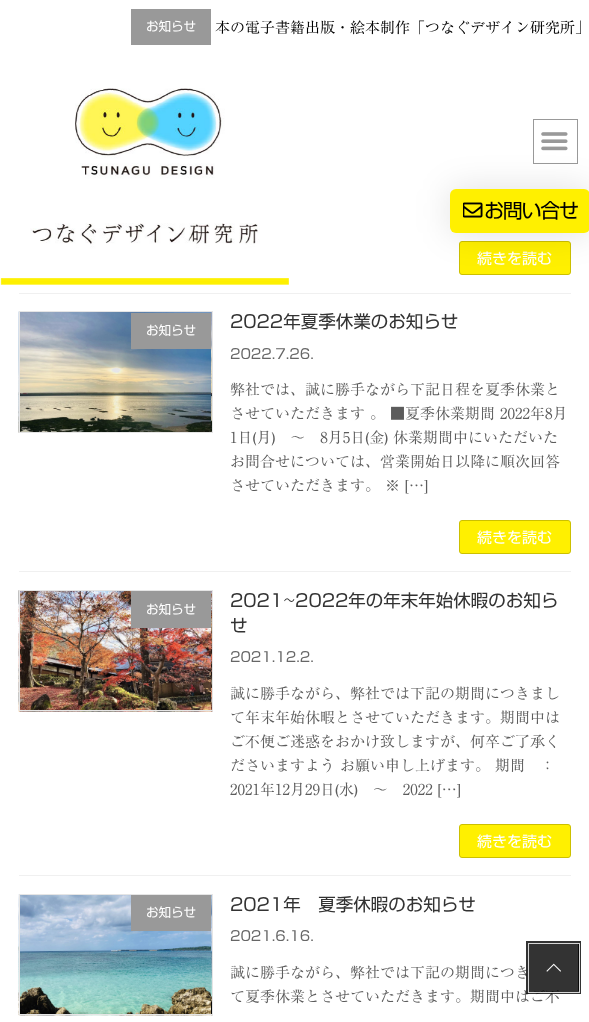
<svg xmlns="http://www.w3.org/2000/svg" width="589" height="1022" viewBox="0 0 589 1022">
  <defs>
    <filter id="blur1" x="-50%" y="-200%" width="200%" height="500%"><feGaussianBlur stdDeviation="17"/></filter>
  </defs>
  <rect width="100%" height="100%" fill="#ffffff"/>
  <rect x="19" y="293" width="552" height="1" fill="#f0f0f0"/>
  <text x="215" y="33" font-family="'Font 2'" font-size="15" fill="#000000">本の電子書籍出版・絵本制作「つなぐデザイン研究所」</text>
  <image x="0" y="33" width="289" height="252" href="img4.png"/>
  <rect x="131" y="9" width="80" height="36" fill="#999999"/>
  <text x="146" y="31" font-family="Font" font-size="12.5" fill="#ffffff">お知らせ</text>
  <rect x="459.5" y="241.5" width="111" height="33" rx="2.5" fill="#fff000" stroke="#ccc000"/>
  <text x="477" y="264" font-family="Font" font-size="15" fill="#ffffff">続きを読む</text>
  <rect x="19" y="571" width="552" height="1" fill="#f0f0f0"/>
  <image x="18" y="311" width="194" height="122" href="img1.png"/>
  <rect x="19.5" y="311.5" width="193" height="121" fill="none" stroke="#e5e5e5"/>
  <rect x="131" y="313" width="80" height="36" fill="#999999"/>
  <text x="146" y="335" font-family="Font" font-size="12.5" fill="#ffffff">お知らせ</text>
  <text x="230" y="328" font-family="Font" font-size="17.5" fill="#333333">2022年夏季休業のお知らせ</text>
  <text x="230" y="359" font-family="Font" font-size="13.75" fill="#666666">2022.7.26.</text>
  <text x="230" y="395" font-family="'Font 2'" font-size="15" fill="#5c5c5c">弊社では、誠に勝手ながら下記日程を夏季休業と</text>
  <text x="230" y="419" font-family="'Font 2'" font-size="15" fill="#5c5c5c">させていただきます 。 ■夏季休業期間 2022年8月</text>
  <text x="230" y="443" font-family="'Font 2'" font-size="15" fill="#5c5c5c">1日(月)　～　8月5日(金) 休業期間中にいただいた</text>
  <text x="230" y="467" font-family="'Font 2'" font-size="15" fill="#5c5c5c">お問合せについては、営業開始日以降に順次回答</text>
  <text x="230" y="491" font-family="'Font 2'" font-size="15" fill="#5c5c5c">させていただきます。 ※ […]</text>
  <rect x="459.5" y="520.5" width="111" height="33" rx="2.5" fill="#fff000" stroke="#ccc000"/>
  <text x="477" y="543" font-family="Font" font-size="15" fill="#ffffff">続きを読む</text>
  <rect x="19" y="875" width="552" height="1" fill="#f0f0f0"/>
  <image x="18" y="590" width="195" height="122" href="img2.png"/>
  <rect x="19.5" y="590.5" width="193" height="120" fill="none" stroke="#e5e5e5"/>
  <rect x="131" y="591" width="80" height="37" fill="#999999"/>
  <text x="146" y="614" font-family="Font" font-size="12.5" fill="#ffffff">お知らせ</text>
  <text x="230" y="607" font-family="Font" font-size="17.5" fill="#333333">2021~2022年の年末年始休暇のお知ら</text>
  <text x="230" y="632" font-family="Font" font-size="17.5" fill="#333333">せ</text>
  <text x="230" y="662" font-family="Font" font-size="13.75" fill="#666666">2021.12.2.</text>
  <text x="230" y="699" font-family="'Font 2'" font-size="15" fill="#5c5c5c">誠に勝手ながら、弊社では下記の期間につきまし</text>
  <text x="230" y="723" font-family="'Font 2'" font-size="15" fill="#5c5c5c">て年末年始休暇とさせていただきます。期間中は</text>
  <text x="230" y="747" font-family="'Font 2'" font-size="15" fill="#5c5c5c">ご不便ご迷惑をおかけ致しますが、何卒ご了承く</text>
  <text x="230" y="771" font-family="'Font 2'" font-size="15" fill="#5c5c5c">ださいますよう お願い申し上げます。 期間　：</text>
  <text x="230" y="795" font-family="'Font 2'" font-size="15" fill="#5c5c5c">2021年12月29日(水)　～　2022 […]</text>
  <rect x="459.5" y="824.5" width="111" height="33" rx="2.5" fill="#fff000" stroke="#ccc000"/>
  <text x="477" y="847" font-family="Font" font-size="15" fill="#ffffff">続きを読む</text>
  <image x="18" y="894" width="195" height="122" href="img3.png"/>
  <rect x="19.5" y="894.5" width="193" height="120" fill="none" stroke="#e5e5e5"/>
  <rect x="131" y="895" width="80" height="36" fill="#999999"/>
  <text x="146" y="917" font-family="Font" font-size="12.5" fill="#ffffff">お知らせ</text>
  <text x="230" y="911" font-family="Font" font-size="17.5" fill="#333333">2021年　夏季休暇のお知らせ</text>
  <text x="230" y="941" font-family="Font" font-size="13.75" fill="#666666">2021.6.16.</text>
  <text x="230" y="978" font-family="'Font 2'" font-size="15" fill="#5c5c5c">誠に勝手ながら、弊社では下記の期間につき</text>
  <text x="230" y="1002" font-family="'Font 2'" font-size="15" fill="#5c5c5c">て夏季休業とさせていただきます。期間中はご不</text>
  <rect x="533.5" y="119.5" width="44" height="44" fill="none" stroke="#999999"/>
  <image x="541" y="132" width="27" height="19" href="img5.png"/>
  <rect x="450" y="189" width="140" height="44" rx="6" fill="#000000" fill-opacity="0.12" filter="url(#blur1)"/>
  <rect x="450" y="189" width="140" height="44" rx="6" fill="#fff000"/>
  <image x="463" y="202" width="20" height="16" href="img6.png"/>
  <text x="484" y="218" font-family="Font" font-size="20" letter-spacing="-1.25" fill="#000000">お問い合せ</text>
  <rect x="527.5" y="942.5" width="52" height="50" fill="none" stroke="#000000" stroke-opacity="0.8" stroke-width="3"/>
  <rect x="528.5" y="943.5" width="51" height="49" fill="none" stroke="#ffffff" stroke-opacity="0.8"/>
  <rect x="529" y="944" width="50" height="47" fill="#000000" fill-opacity="0.8"/>
  <image x="546" y="963" width="15" height="9" href="img7.png"/>
</svg>
